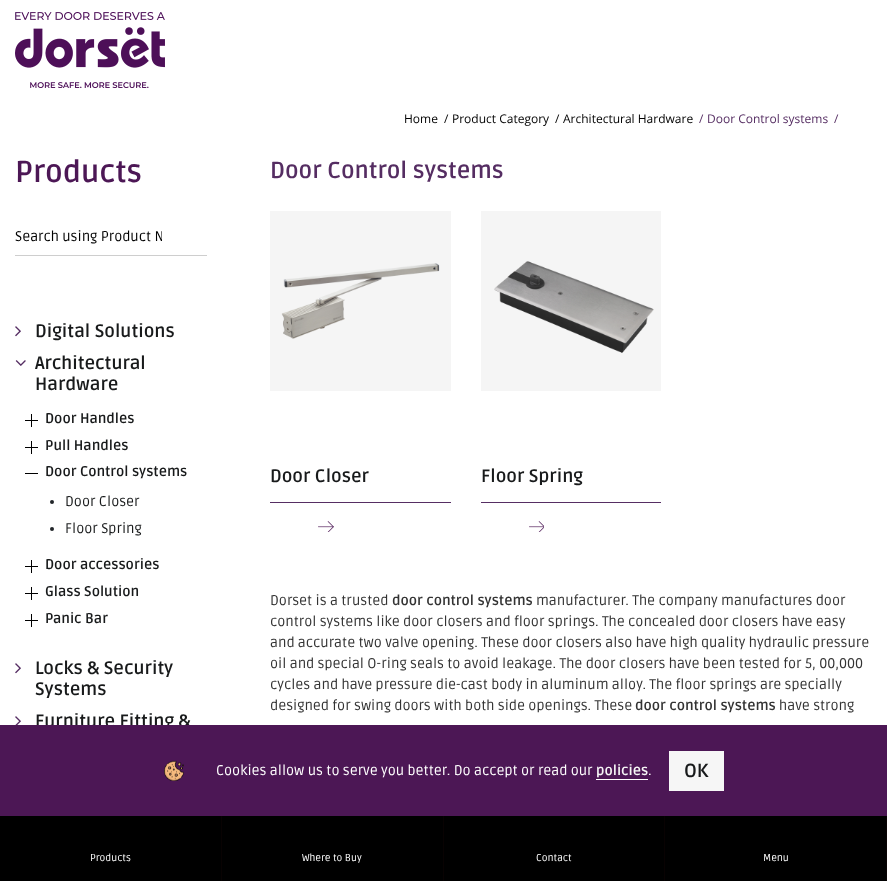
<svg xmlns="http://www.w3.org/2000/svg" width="887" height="881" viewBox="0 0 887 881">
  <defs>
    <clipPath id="clip1"><rect x="15" y="228" width="147" height="17"/></clipPath>
  </defs>
  <rect width="100%" height="100%" fill="#ffffff"/>
  <image x="15" y="12" width="150" height="76" href="img1.png"/>
  <text x="404" y="123" font-family="Open Sans" font-size="12" fill="#000000">Home</text>
  <text x="444" y="123" font-family="Open Sans" font-size="12" fill="#000000">/</text>
  <text x="452" y="123" font-family="Open Sans" font-size="12" fill="#000000">Product Category</text>
  <text x="555" y="123" font-family="Open Sans" font-size="12" fill="#000000">/</text>
  <text x="563" y="123" font-family="Open Sans" font-size="12" fill="#000000">Architectural Hardware</text>
  <text x="699" y="123" font-family="Open Sans" font-size="12" fill="#552d62">/</text>
  <text x="707" y="123" font-family="Open Sans" font-size="12" fill="#552d62">Door Control systems</text>
  <text x="834" y="123" font-family="Open Sans" font-size="12" fill="#552d62">/</text>
  <text x="15" y="182" font-family="Ruda" font-size="30" font-weight="bold" fill="#4c1755">Products</text>
  <rect x="15" y="255" width="192" height="1" fill="#cecece"/>
  <g clip-path="url(#clip1)">
    <text x="15" y="241" font-family="Ruda" font-size="14" fill="#000000">Search using Product N</text>
  </g>
  <image x="15" y="326" width="6" height="11" href="img2.png"/>
  <text x="35" y="337" font-family="Ruda" font-size="18" font-weight="bold" fill="#181a1b">Digital Solutions</text>
  <image x="15" y="360" width="11" height="6" href="img3.png"/>
  <text x="35" y="369" font-family="Ruda" font-size="18" font-weight="bold" fill="#181a1b">Architectural</text>
  <text x="35" y="390" font-family="Ruda" font-size="18" font-weight="bold" fill="#181a1b">Hardware</text>
  <image x="25" y="414" width="13" height="13" href="img4.png"/>
  <text x="45" y="423" font-family="Ruda" font-size="14" font-weight="bold" fill="#181a1b">Door Handles</text>
  <image x="25" y="441" width="13" height="13" href="img4.png"/>
  <text x="45" y="450" font-family="Ruda" font-size="14" font-weight="bold" fill="#181a1b">Pull Handles</text>
  <rect x="25" y="473" width="13" height="1" fill="#000000"/>
  <text x="45" y="476" font-family="Ruda" font-size="14" font-weight="bold" fill="#181a1b">Door Control systems</text>
  <circle cx="52" cy="502" r="2" fill="#212529"/>
  <text x="65" y="506" font-family="Ruda" font-size="14" fill="#181a1b">Door Closer</text>
  <circle cx="52" cy="529" r="2" fill="#212529"/>
  <text x="65" y="533" font-family="Ruda" font-size="14" fill="#181a1b">Floor Spring</text>
  <image x="25" y="560" width="13" height="13" href="img4.png"/>
  <text x="45" y="569" font-family="Ruda" font-size="14" font-weight="bold" fill="#181a1b">Door accessories</text>
  <image x="25" y="587" width="13" height="13" href="img4.png"/>
  <text x="45" y="596" font-family="Ruda" font-size="14" font-weight="bold" fill="#181a1b">Glass Solution</text>
  <image x="25" y="614" width="13" height="13" href="img4.png"/>
  <text x="45" y="623" font-family="Ruda" font-size="14" font-weight="bold" fill="#181a1b">Panic Bar</text>
  <image x="15" y="663" width="6" height="11" href="img2.png"/>
  <text x="35" y="674" font-family="Ruda" font-size="18" font-weight="bold" fill="#181a1b">Locks &amp; Security</text>
  <text x="35" y="695" font-family="Ruda" font-size="18" font-weight="bold" fill="#181a1b">Systems</text>
  <image x="15" y="716" width="6" height="9" href="img5.png"/>
  <text x="35" y="727" font-family="Ruda" font-size="18" font-weight="bold" fill="#181a1b">Furniture Fitting &amp;</text>
  <text x="270" y="178" font-family="Ruda" font-size="23" font-weight="bold" fill="#552d62">Door Control systems</text>
  <image x="270" y="211" width="181" height="180" href="img6.png"/>
  <rect x="270" y="502" width="181" height="1" fill="#562e63"/>
  <text x="270" y="482" font-family="Ruda" font-size="18" font-weight="bold" fill="#181a1b">Door Closer</text>
  <image x="318" y="521" width="16" height="11" href="img7.png"/>
  <image x="481" y="211" width="180" height="180" href="img8.png"/>
  <rect x="481" y="502" width="180" height="1" fill="#562e63"/>
  <text x="481" y="482" font-family="Ruda" font-size="18" font-weight="bold" fill="#181a1b">Floor Spring</text>
  <image x="529" y="521" width="15" height="11" href="img9.png"/>
  <text x="270" y="605" font-family="Ruda" font-size="14" fill="#333333">Dorset is a trusted</text>
  <text x="392" y="605" font-family="Ruda" font-size="14" font-weight="bold" fill="#333333">door control systems</text>
  <text x="536" y="605" font-family="Ruda" font-size="14" fill="#333333">manufacturer. The company manufactures door</text>
  <text x="270" y="626" font-family="Ruda" font-size="14" fill="#333333">control systems like door closers and floor springs. The concealed door closers have easy</text>
  <text x="270" y="647" font-family="Ruda" font-size="14" fill="#333333">and accurate two valve opening. These door closers also have high quality hydraulic pressure</text>
  <text x="270" y="668" font-family="Ruda" font-size="14" fill="#333333">oil and special O-ring seals to avoid leakage. The door closers have been tested for 5, 00,000</text>
  <text x="270" y="689" font-family="Ruda" font-size="14" fill="#333333">cycles and have pressure die-cast body in aluminum alloy. The floor springs are specially</text>
  <text x="270" y="710" font-family="Ruda" font-size="14" fill="#333333">designed for swing doors with both side openings. These</text>
  <text x="635" y="710" font-family="Ruda" font-size="14" font-weight="bold" fill="#333333">door control systems</text>
  <text x="779" y="710" font-family="Ruda" font-size="14" fill="#333333">have strong</text>
  <rect x="0" y="816" width="886" height="65" fill="#000000"/>
  <rect x="221" y="812" width="1" height="69" fill="#080202"/>
  <rect x="443" y="812" width="1" height="69" fill="#080202"/>
  <rect x="664" y="812" width="1" height="69" fill="#080202"/>
  <rect x="886" y="812" width="1" height="69" fill="#080202"/>
  <rect x="0" y="725" width="887" height="91" fill="#4c1755"/>
  <image x="164" y="760" width="20" height="21" href="img10.png"/>
  <text x="216" y="775" font-family="Ruda" font-size="14" fill="#ffffff">Cookies allow us to serve you better. Do accept or read our</text>
  <text x="596" y="775" font-family="Ruda" font-size="14" font-weight="bold" fill="#f6f6f6">policies</text>
  <rect x="596" y="779" width="52" height="1" fill="#ffffff"/>
  <text x="648" y="775" font-family="Ruda" font-size="14" fill="#ffffff">.</text>
  <rect x="669" y="751" width="55" height="40" fill="#f6f6f6"/>
  <text x="684" y="777" font-family="Ruda" font-size="19" font-weight="bold" fill="#181a1b">OK</text>
  <text x="90" y="861" font-family="Ruda" font-size="10" fill="#ffffff">Products</text>
  <text x="302" y="861" font-family="Ruda" font-size="10" fill="#ffffff">Where to Buy</text>
  <text x="536" y="861" font-family="Ruda" font-size="10" fill="#ffffff">Contact</text>
  <text x="763" y="861" font-family="Ruda" font-size="10" fill="#ffffff">Menu</text>
</svg>
